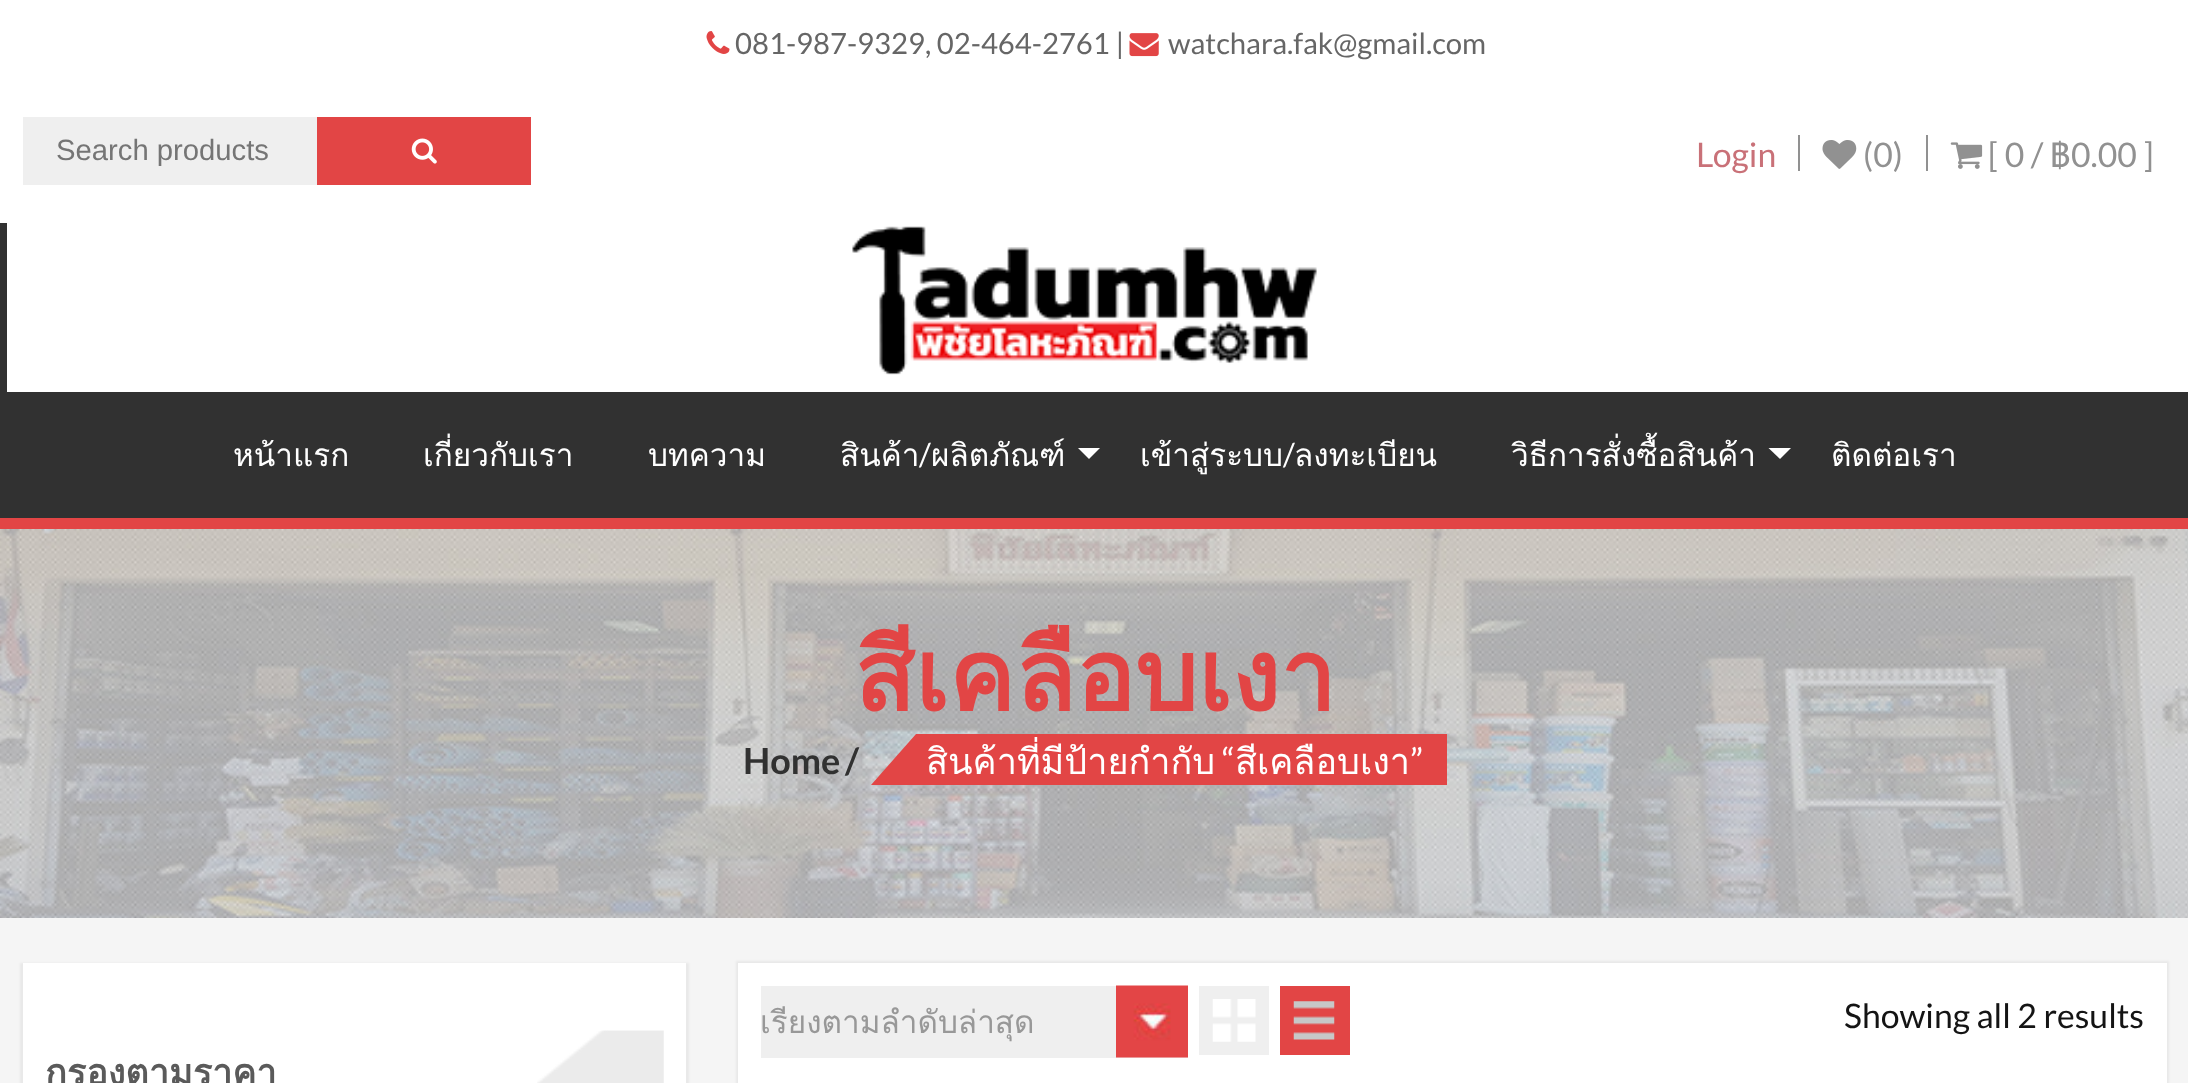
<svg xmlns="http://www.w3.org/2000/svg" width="2188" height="1083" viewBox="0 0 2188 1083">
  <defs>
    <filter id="blur1" x="-50%" y="-200%" width="200%" height="500%"><feGaussianBlur stdDeviation="1"/></filter>
    <clipPath id="clip1"><rect x="761" y="988" width="360" height="67"/></clipPath>
  </defs>
  <rect width="100%" height="100%" fill="#ffffff"/>
  <image x="706" y="31" width="24" height="23" href="img1.png"/>
  <text x="735" y="54" font-family="Lato" font-size="29.25" fill="#666666">081-987-9329, 02-464-2761 |</text>
  <image x="1129" y="33" width="30" height="24" href="img2.png"/>
  <text x="1168" y="54" font-family="Lato" font-size="29.25" fill="#666666">watchara.fak@gmail.com</text>
  <rect x="23" y="117" width="294" height="68" fill="#efefef"/>
  <text x="56" y="160" font-family="Liberation Sans" font-size="29.25" fill="#757575">Search products</text>
  <rect x="317" y="117" width="214" height="68" fill="#e24545"/>
  <image x="411" y="138" width="26" height="26" href="img3.png"/>
  <text x="1696" y="167" font-family="Lato" font-size="33.75" fill="#c97178">Login</text>
  <rect x="1926" y="135" width="2" height="36" fill="#919191"/>
  <rect x="1798" y="135" width="2" height="36" fill="#919191"/>
  <image x="1822" y="140" width="35" height="29" href="img4.png"/>
  <text x="1863" y="167" font-family="Lato" font-size="33.75" fill="#919191">(0)</text>
  <image x="1950" y="142" width="33" height="27" href="img5.png"/>
  <text x="1988" y="167" font-family="Lato" font-size="33.75" fill="#919191">[ 0 /</text>
  <text x="2050" y="167" font-family="Loma" font-size="33.75" fill="#919191">฿</text>
  <text x="2071" y="167" font-family="Lato" font-size="33.75" fill="#919191">0.00 ]</text>
  <rect x="0" y="518" width="2188" height="11" fill="#e24545"/>
  <image x="852" y="226" width="465" height="149" href="img6.png"/>
  <rect x="7" y="392" width="2181" height="126" fill="#313131"/>
  <rect x="0" y="223" width="7" height="295" fill="#313131"/>
  <text x="233" y="466" font-family="Loma" font-size="31.5" fill="#ffffff">หน้าแรก</text>
  <text x="423" y="466" font-family="Loma" font-size="31.5" fill="#ffffff">เกี่ยวกับเรา</text>
  <text x="648" y="466" font-family="Loma" font-size="31.5" fill="#ffffff">บทความ</text>
  <text x="840" y="466" font-family="Loma" font-size="31.5" fill="#ffffff">สินค้า</text>
  <text x="919" y="466" font-family="Lato" font-size="31.5" fill="#ffffff">/</text>
  <text x="931" y="466" font-family="Loma" font-size="31.5" fill="#ffffff">ผลิตภัณฑ์</text>
  <path d="M1078 448H1100L1089 459Z" fill="#ffffff"/>
  <text x="1140" y="466" font-family="Loma" font-size="31.5" fill="#ffffff">เข้าสู่ระบบ</text>
  <text x="1283" y="466" font-family="Lato" font-size="31.5" fill="#ffffff">/</text>
  <text x="1294" y="466" font-family="Loma" font-size="31.5" fill="#ffffff">ลงทะเบียน</text>
  <text x="1511" y="466" font-family="Loma" font-size="31.5" fill="#ffffff">วิธีการสั่งซื้อสินค้า</text>
  <path d="M1768.5 448H1791L1780 459Z" fill="#ffffff"/>
  <text x="1831" y="466" font-family="Loma" font-size="31.5" fill="#ffffff">ติดต่อเรา</text>
  <image x="0" y="529" width="2188" height="389" href="img7.png"/>
  <text x="854" y="711" font-family="Loma" font-size="99" font-weight="bold" fill="#e24545">สีเคลือบเงา</text>
  <text x="743" y="774" font-family="Lato" font-size="36" font-weight="bold" fill="#313131">Home</text>
  <text x="845" y="774" font-family="Lato" font-size="36" font-weight="bold" fill="#313131">/</text>
  <rect x="916" y="734" width="531" height="51" fill="#e24545"/>
  <text x="926" y="774" font-family="Loma" font-size="36" fill="#ffffff">สินค้าที่มีป้ายกำกับ</text>
  <path d="M916 734V785H871Z" fill="#e24545"/>
  <text x="1222" y="774" font-family="Lato" font-size="36" fill="#ffffff">“</text>
  <text x="1235" y="774" font-family="Loma" font-size="36" fill="#ffffff">สีเคลือบเงา</text>
  <text x="1410" y="774" font-family="Lato" font-size="36" fill="#ffffff">”</text>
  <rect x="0" y="918" width="2188" height="165" fill="#f5f5f5"/>
  <rect x="736" y="961" width="1433" height="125" fill="#000000" fill-opacity="0.05" filter="url(#blur1)"/>
  <rect x="738" y="963" width="1429" height="120" fill="#ffffff"/>
  <rect x="761" y="986" width="427" height="72" fill="#efefef"/>
  <image x="1116" y="985" width="72" height="73" href="img8.png"/>
  <g clip-path="url(#clip1)">
    <text x="760" y="1033" font-family="Loma" font-size="31.5" fill="#989898">เรียงตามลำดับล่าสุด</text>
  </g>
  <rect x="1199" y="986" width="70" height="69" fill="#efefef"/>
  <image x="1212" y="999" width="44" height="43" href="img9.png"/>
  <rect x="1280" y="986" width="70" height="69" fill="#e24545"/>
  <image x="1293" y="1001" width="42" height="39" href="img10.png"/>
  <text x="1844" y="1028" font-family="Lato" font-size="33.75" fill="#141414">Showing all 2 results</text>
  <rect x="20" y="963" width="669" height="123" fill="#000000" fill-opacity="0.05" filter="url(#blur1)"/>
  <rect x="23" y="963" width="663" height="120" fill="#ffffff"/>
  <image x="537" y="1030" width="127" height="53" href="img11.png"/>
  <text x="45" y="1085" font-family="Loma" font-size="36" font-weight="bold" fill="#5a5a5a">กรองตามราคา</text>
</svg>
